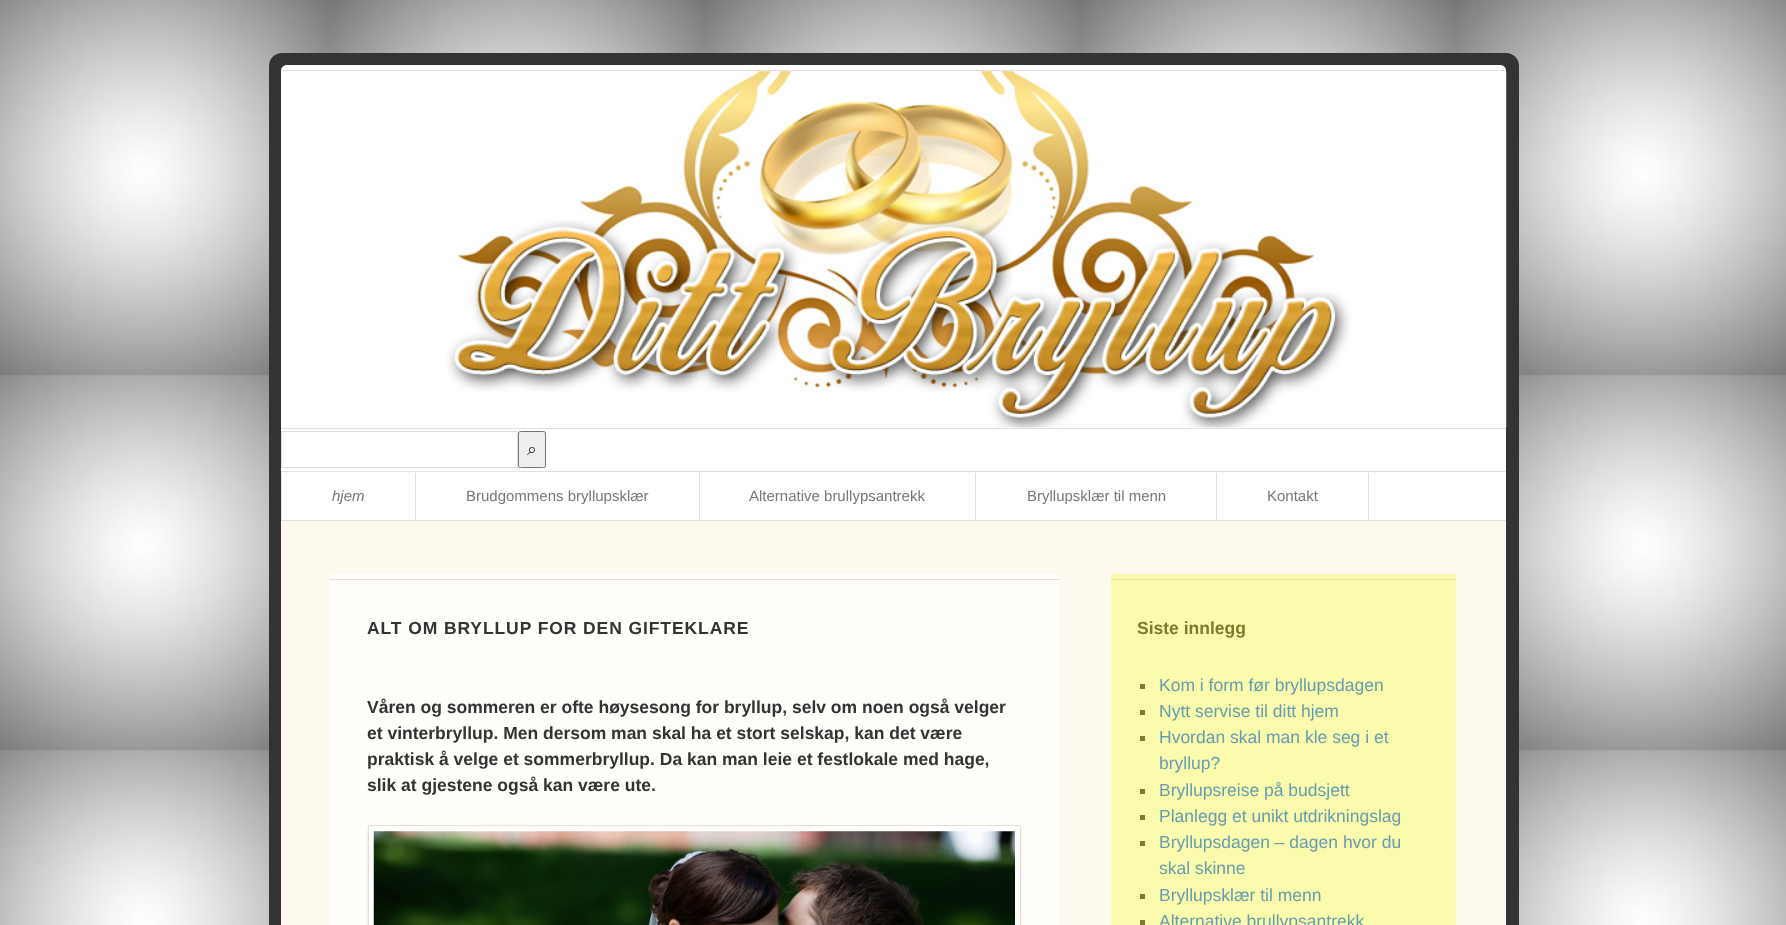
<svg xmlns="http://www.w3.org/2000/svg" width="1786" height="925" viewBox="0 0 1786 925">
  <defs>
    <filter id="blur1" x="-50%" y="-200%" width="200%" height="500%"><feGaussianBlur stdDeviation="1"/></filter>
  </defs>
  <rect width="100%" height="100%" fill="#ffffff"/>
  <image x="0" y="0" width="1786" height="925" href="img1.png"/>
  <rect x="269" y="53" width="1250" height="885" rx="13" fill="#333333"/>
  <path d="M287 65H1500C1503.5 65 1506 67.5 1506 71V473H281V71C281 67.5 283.5 65 287 65Z" fill="#ffffff"/>
  <rect x="281" y="70" width="1225" height="1" fill="#e4e0d5"/>
  <image x="447" y="71" width="1060" height="357" href="img2.png"/>
  <rect x="281" y="428" width="1225" height="1" fill="#e4e0d5"/>
  <rect x="281.5" y="431.5" width="236" height="36" fill="none" stroke="#dddddd"/>
  <rect x="518.5" y="431.5" width="27" height="36" rx="2" fill="#efefef" stroke="#767676"/>
  <text x="527" y="455" font-family="FreeSerif" font-size="17.5" fill="#333333">⌕</text>
  <rect x="281" y="473" width="1225" height="47" fill="#ffffff"/>
  <rect x="281" y="471" width="1225" height="1" fill="#e4e0d5"/>
  <rect x="281" y="473" width="1" height="47" fill="#e4e0d5"/>
  <rect x="415" y="473" width="1" height="47" fill="#e4e0d5"/>
  <text x="332" y="501" font-family="Liberation Sans" font-size="15" font-style="italic" fill="#777777">hjem</text>
  <rect x="699" y="473" width="1" height="47" fill="#e4e0d5"/>
  <text x="466" y="501" font-family="Liberation Sans" font-size="15" fill="#777777">Brudgommens bryllupsklær</text>
  <rect x="975" y="473" width="1" height="47" fill="#e4e0d5"/>
  <text x="749" y="501" font-family="Liberation Sans" font-size="15" fill="#777777">Alternative brullypsantrekk</text>
  <rect x="1216" y="473" width="1" height="47" fill="#e4e0d5"/>
  <text x="1027" y="501" font-family="Liberation Sans" font-size="15" fill="#777777">Bryllupsklær til menn</text>
  <rect x="1368" y="473" width="1" height="47" fill="#e4e0d5"/>
  <text x="1267" y="501" font-family="Liberation Sans" font-size="15" fill="#777777">Kontakt</text>
  <path d="M281 521H1506V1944C1506 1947 1503 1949 1500 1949H288C284 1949 281 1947 281 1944Z" fill="#fdf9ee"/>
  <rect x="281" y="520" width="1225" height="1" fill="#e4e0d5"/>
  <rect x="330" y="574" width="729" height="351" fill="#fffefa"/>
  <rect x="330" y="579" width="729" height="1" fill="#e4e0d5"/>
  <text x="367" y="634" font-family="Liberation Sans" font-size="17.5" font-weight="bold" letter-spacing="0.9" fill="#333333">ALT OM BRYLLUP FOR DEN GIFTEKLARE</text>
  <text x="367" y="713" font-family="Liberation Sans" font-size="17.5" font-weight="bold" fill="#333333">Våren og sommeren er ofte høysesong for bryllup, selv om noen også velger</text>
  <text x="367" y="739" font-family="Liberation Sans" font-size="17.5" font-weight="bold" fill="#333333">et vinterbryllup. Men dersom man skal ha et stort selskap, kan det være</text>
  <text x="367" y="765" font-family="Liberation Sans" font-size="17.5" font-weight="bold" fill="#333333">praktisk å velge et sommerbryllup. Da kan man leie et festlokale med hage,</text>
  <text x="367" y="791" font-family="Liberation Sans" font-size="17.5" font-weight="bold" fill="#333333">slik at gjestene også kan være ute.</text>
  <rect x="368" y="828" width="653" height="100" fill="#bfbfb6" fill-opacity="0.5" filter="url(#blur1)"/>
  <rect x="368.5" y="825.5" width="652" height="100" fill="#ffffff" stroke="#e4e0d5"/>
  <image x="373" y="831" width="642" height="94" href="img3.png"/>
  <rect x="1111" y="574" width="345" height="351" fill="#fbfbad"/>
  <rect x="1111" y="579" width="345" height="1" fill="#e2e294"/>
  <text x="1137" y="634" font-family="Liberation Sans" font-size="17.5" font-weight="bold" fill="#7c7c2e">Siste innlegg</text>
  <rect x="1140" y="684" width="5" height="5" fill="#7c7c2e"/>
  <text x="1159" y="691" font-family="Liberation Sans" font-size="17.5" fill="#679daf">Kom i form før bryllupsdagen</text>
  <rect x="1140" y="710" width="5" height="5" fill="#7c7c2e"/>
  <text x="1159" y="717" font-family="Liberation Sans" font-size="17.5" fill="#679daf">Nytt servise til ditt hjem</text>
  <rect x="1140" y="736" width="5" height="5" fill="#7c7c2e"/>
  <text x="1159" y="743" font-family="Liberation Sans" font-size="17.5" fill="#679daf">Hvordan skal man kle seg i et</text>
  <text x="1159" y="769" font-family="Liberation Sans" font-size="17.5" fill="#679daf">bryllup?</text>
  <rect x="1140" y="789" width="5" height="5" fill="#7c7c2e"/>
  <text x="1159" y="796" font-family="Liberation Sans" font-size="17.5" fill="#679daf">Bryllupsreise på budsjett</text>
  <rect x="1140" y="815" width="5" height="5" fill="#7c7c2e"/>
  <text x="1159" y="822" font-family="Liberation Sans" font-size="17.5" fill="#679daf">Planlegg et unikt utdrikningslag</text>
  <rect x="1140" y="841" width="5" height="5" fill="#7c7c2e"/>
  <text x="1159" y="848" font-family="Liberation Sans" font-size="17.5" fill="#679daf">Bryllupsdagen – dagen hvor du</text>
  <text x="1159" y="874" font-family="Liberation Sans" font-size="17.5" fill="#679daf">skal skinne</text>
  <rect x="1140" y="894" width="5" height="5" fill="#7c7c2e"/>
  <text x="1159" y="901" font-family="Liberation Sans" font-size="17.5" fill="#679daf">Bryllupsklær til menn</text>
  <rect x="1140" y="920" width="5" height="5" fill="#7c7c2e"/>
  <text x="1159" y="927" font-family="Liberation Sans" font-size="17.5" fill="#679daf">Alternative brullypsantrekk</text>
</svg>
